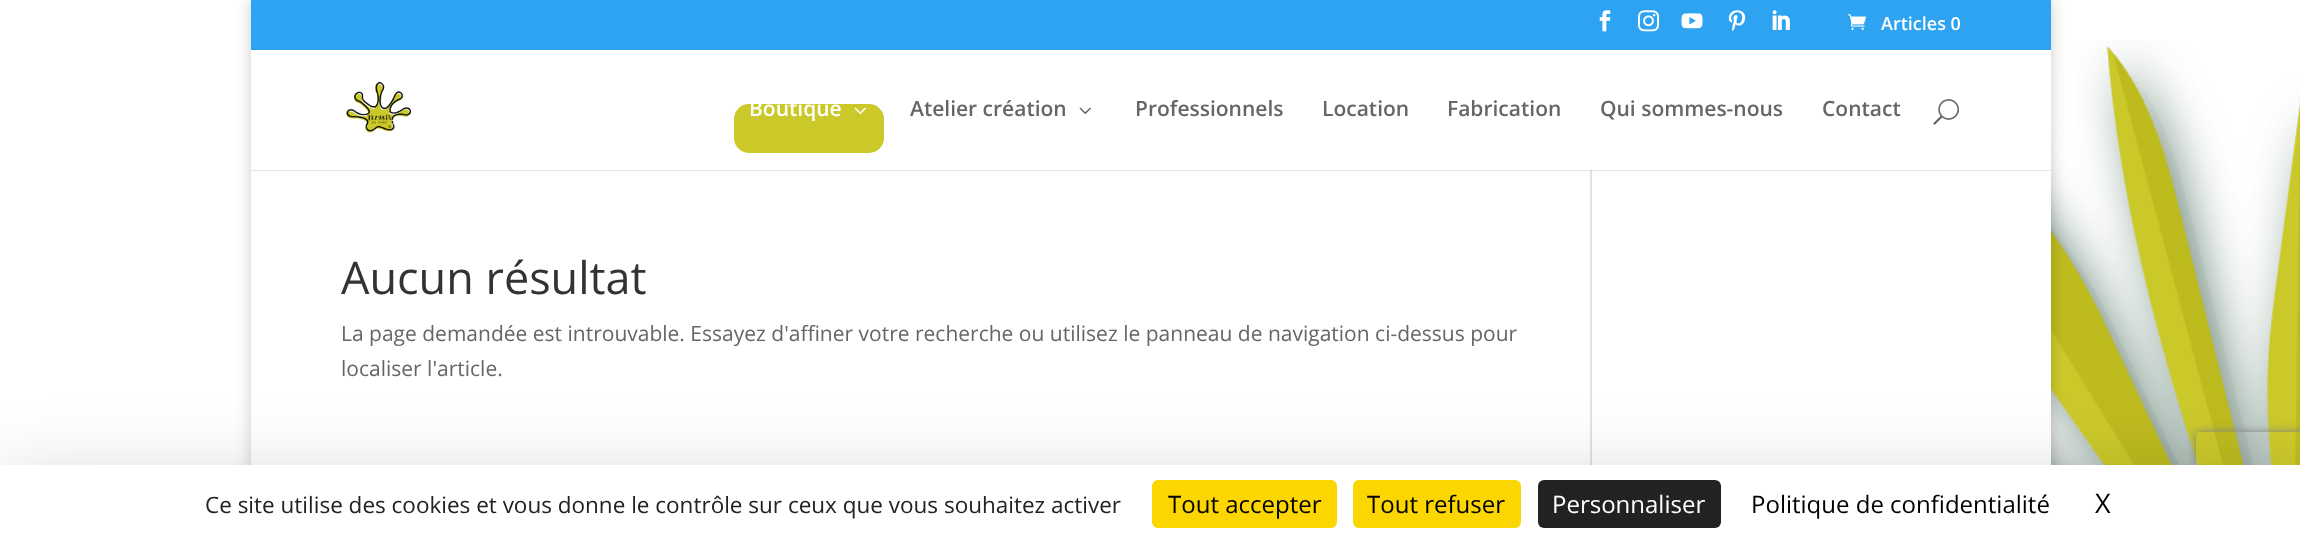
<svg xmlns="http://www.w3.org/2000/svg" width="2300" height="542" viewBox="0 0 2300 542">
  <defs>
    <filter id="blur1" x="-50%" y="-200%" width="200%" height="500%"><feGaussianBlur stdDeviation="7.5"/></filter>
    <filter id="blur2" x="-50%" y="-200%" width="200%" height="500%"><feGaussianBlur stdDeviation="45"/></filter>
    <clipPath id="clip1"><path d="M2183 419H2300V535H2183ZM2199 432H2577C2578.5 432 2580 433.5 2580 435V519C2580 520.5 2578.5 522 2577 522H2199C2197.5 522 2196 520.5 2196 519V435C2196 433.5 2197.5 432 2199 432Z" clip-rule="evenodd"/></clipPath>
    <filter id="blur3" x="-50%" y="-200%" width="200%" height="500%"><feGaussianBlur stdDeviation="4"/></filter>
  </defs>
  <rect width="100%" height="100%" fill="#ffffff"/>
  <image x="2051" y="40" width="249" height="425" href="img1.png"/>
  <rect x="251" y="0" width="1800" height="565" fill="#000000" fill-opacity="0.2" filter="url(#blur1)"/>
  <rect x="251" y="0" width="1800" height="50" fill="#2ea3f2"/>
  <image x="1599" y="10" width="12" height="22" href="img2.png"/>
  <image x="1638" y="10" width="21" height="22" href="img3.png"/>
  <image x="1681" y="13" width="22" height="16" href="img4.png"/>
  <image x="1728" y="10" width="18" height="22" href="img5.png"/>
  <image x="1772" y="10" width="18" height="20" href="img6.png"/>
  <image x="1848" y="14" width="18" height="16" href="img7.png"/>
  <text x="1881" y="30" font-family="Open Sans" font-size="18" font-weight="600" fill="#ffffff">Articles 0</text>
  <rect x="251" y="170" width="1800" height="295" fill="#ffffff"/>
  <rect x="1590" y="168" width="2" height="297" fill="#e2e2e2"/>
  <path d="M251 170V171H2051V51H2050V170Z" fill="#000000" fill-opacity="0.1"/>
  <rect x="251" y="50" width="1800" height="120" fill="#ffffff"/>
  <image x="346" y="81" width="65" height="52" href="img8.png"/>
  <rect x="734" y="104" width="150" height="49" rx="15" fill="#cbc92a"/>
  <text x="749" y="116" font-family="Open Sans" font-size="21" font-weight="600" fill="#ffffff">Boutique</text>
  <image x="854" y="107" width="12" height="7" href="img9.png"/>
  <text x="910" y="116" font-family="Open Sans" font-size="21" font-weight="600" fill="#666666">Atelier création</text>
  <image x="1079" y="107" width="12" height="7" href="img10.png"/>
  <text x="1135" y="116" font-family="Open Sans" font-size="21" font-weight="600" fill="#666666">Professionnels</text>
  <text x="1322" y="116" font-family="Open Sans" font-size="21" font-weight="600" fill="#666666">Location</text>
  <text x="1447" y="116" font-family="Open Sans" font-size="21" font-weight="600" fill="#666666">Fabrication</text>
  <text x="1600" y="116" font-family="Open Sans" font-size="21" font-weight="600" fill="#666666">Qui sommes-nous</text>
  <text x="1822" y="116" font-family="Open Sans" font-size="21" font-weight="600" fill="#666666">Contact</text>
  <image x="1933" y="99" width="26" height="26" href="img11.png"/>
  <text x="341" y="294" font-family="Open Sans" font-size="45" fill="#333333">Aucun résultat</text>
  <text x="341" y="341" font-family="Open Sans" font-size="21" fill="#666666">La page demandée est introuvable. Essayez d'affiner votre recherche ou utilisez le panneau de navigation ci-dessus pour</text>
  <text x="341" y="376" font-family="Open Sans" font-size="21" fill="#666666">localiser l'article.</text>
  <rect x="0" y="495" width="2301" height="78" fill="#000000" fill-opacity="0.25" filter="url(#blur2)"/>
  <g clip-path="url(#clip1)">
    <rect x="2196" y="432" width="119" height="90" rx="3" fill="#808080" filter="url(#blur3)"/>
  </g>
  <rect x="0" y="465" width="2300" height="77" fill="#ffffff"/>
  <text x="205" y="513" font-family="Open Sans" font-size="22.5" fill="#222222">Ce site utilise des cookies et vous donne le contrôle sur ceux que vous souhaitez activer</text>
  <rect x="1152" y="480" width="185" height="48" rx="6" fill="#fbd600"/>
  <text x="1168" y="513" font-family="Open Sans" font-size="24" fill="#000000">Tout accepter</text>
  <rect x="1353" y="480" width="168" height="48" rx="6" fill="#fbd600"/>
  <text x="1367" y="513" font-family="Open Sans" font-size="24" fill="#000000">Tout refuser</text>
  <rect x="1538" y="480" width="183" height="48" rx="6" fill="#222222"/>
  <text x="1552" y="513" font-family="Open Sans" font-size="24" fill="#ffffff">Personnaliser</text>
  <text x="1751" y="513" font-family="Open Sans" font-size="24" fill="#000000">Politique de confidentialité</text>
  <text x="2095" y="513" font-family="Open Sans" font-size="27" fill="#000000">X</text>
</svg>
